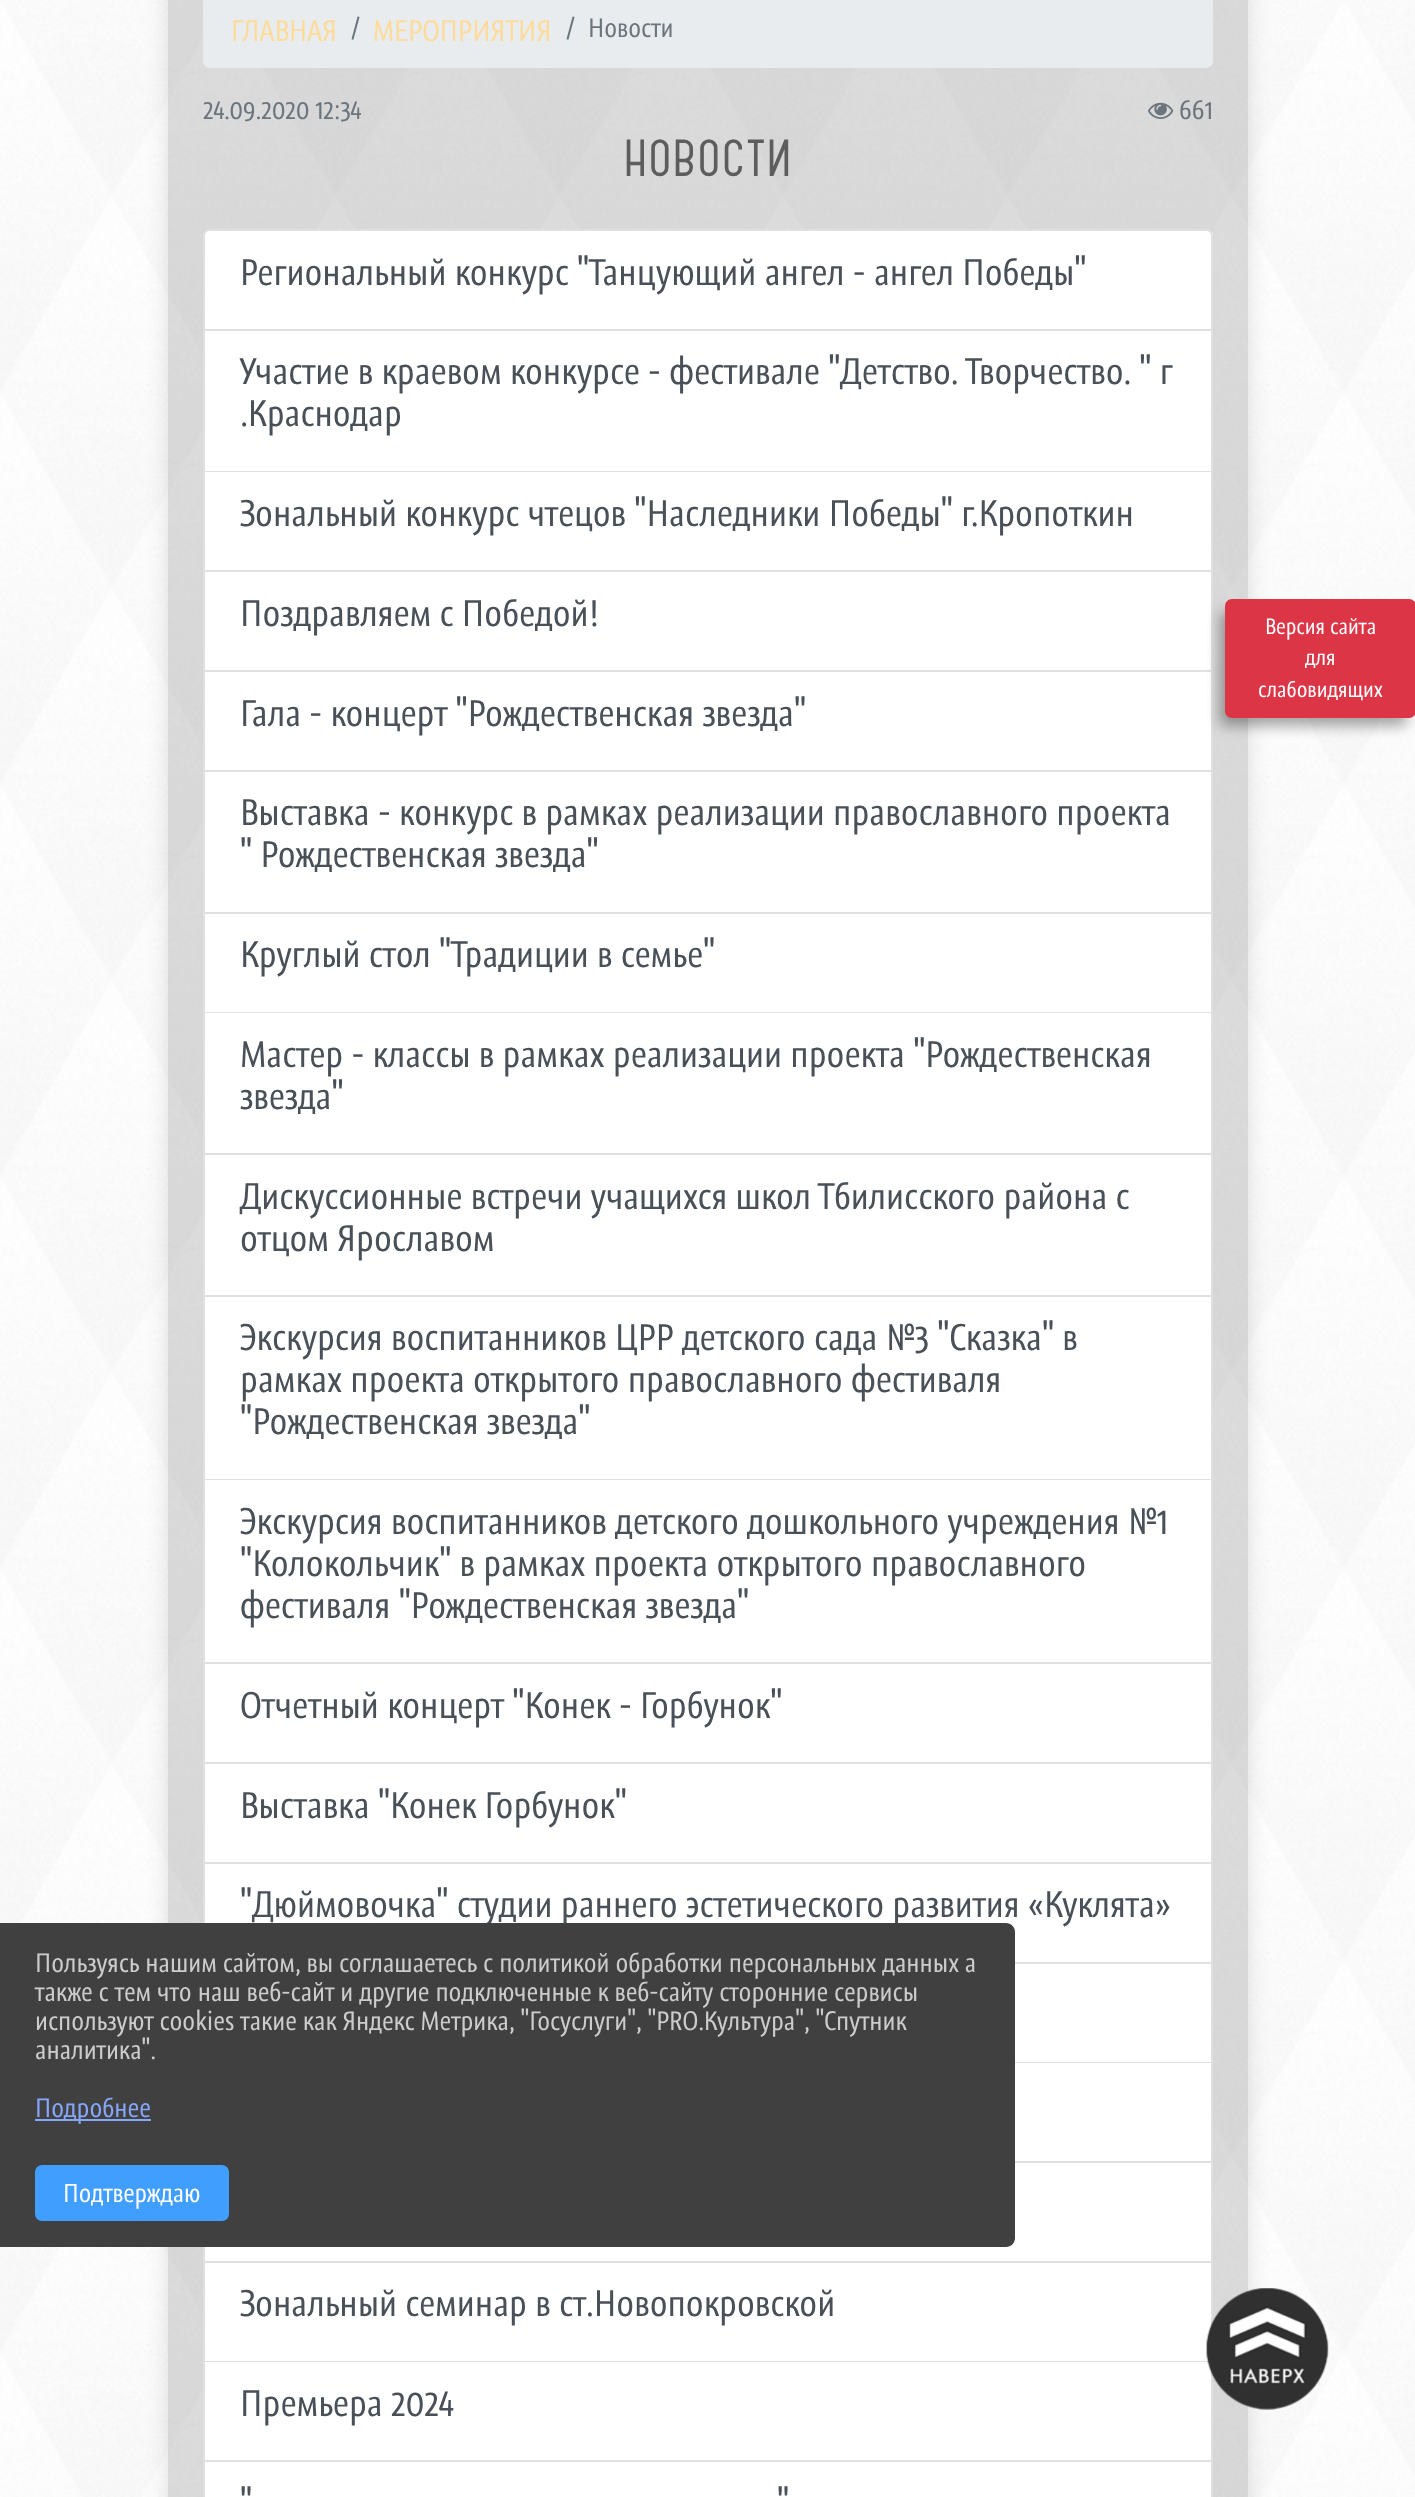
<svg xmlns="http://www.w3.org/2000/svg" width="1415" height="2497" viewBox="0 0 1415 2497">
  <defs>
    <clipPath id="clip1"><path d="M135 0H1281V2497H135ZM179-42H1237C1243-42 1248-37 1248-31V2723C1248 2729 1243 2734 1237 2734H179C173 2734 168 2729 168 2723V-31C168-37 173-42 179-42Z" clip-rule="evenodd"/></clipPath>
    <filter id="blur1" x="-50%" y="-200%" width="200%" height="500%"><feGaussianBlur stdDeviation="10.5"/></filter>
    <filter id="blur2" x="-50%" y="-200%" width="200%" height="500%"><feGaussianBlur stdDeviation="7"/></filter>
  </defs>
  <rect width="100%" height="100%" fill="#ffffff"/>
  <image x="0" y="0" width="1415" height="2497" href="img1.png"/>
  <g clip-path="url(#clip1)">
    <rect x="168" y="-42" width="1080" height="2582" rx="11" fill="#000000" fill-opacity="0.12" filter="url(#blur1)"/>
  </g>
  <rect x="168" y="0" width="1080" height="2497" fill="#2a2b2c" fill-opacity="0.16"/>
  <rect x="203" y="-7" width="1010" height="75" rx="7" fill="#e9ecef"/>
  <text x="231" y="41" font-family="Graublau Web" font-size="28" fill="#fddb9a">ГЛАВНАЯ</text>
  <text x="351" y="37" font-family="Graublau Web" font-size="25.2" fill="#6c757d">/</text>
  <text x="373" y="41" font-family="Graublau Web" font-size="28" fill="#fddb9a">МЕРОПРИЯТИЯ</text>
  <text x="566" y="37" font-family="Graublau Web" font-size="25.2" fill="#6c757d">/</text>
  <text x="588" y="37" font-family="Graublau Web" font-size="25.2" fill="#6c757d">Новости</text>
  <text x="203" y="119" font-family="Graublau Web" font-size="25.2" fill="#6c757d">24.09.2020 12:34</text>
  <image x="1148" y="102" width="26" height="17" href="img2.png"/>
  <text x="1179" y="119" font-family="Graublau Web" font-size="25.2" fill="#6c757d">661</text>
  <text x="624" y="176" font-family="'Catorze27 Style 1'" font-size="45.5" font-weight="600" letter-spacing="1.75" fill="#5d5d5d">НОВОСТИ</text>
  <path d="M210 229H1206C1210 229 1213 232 1213 236V331H203V236C203 232 206 229 210 229Z" fill="#ffffff"/>
  <path d="M210 230H1206C1209.5 230 1212 232.5 1212 236V330H204V236C204 232.5 206.5 230 210 230Z" fill="none" stroke="#000000" stroke-opacity="0.12" stroke-width="2"/>
  <text x="240" y="285" font-family="Graublau Web" font-size="35" fill="#495057">Региональный конкурс "Танцующий ангел - ангел Победы"</text>
  <rect x="203" y="331" width="1010" height="1633" fill="#ffffff"/>
  <path d="M1213 331V472L1211 471V331Z" fill="#dfdfdf"/>
  <path d="M1213 472H203L205 471H1211Z" fill="#000000" fill-opacity="0.12"/>
  <path d="M203 472V331H205V471Z" fill="#000000" fill-opacity="0.12"/>
  <text x="240" y="384" font-family="Graublau Web" font-size="35" fill="#495057">Участие в краевом конкурсе - фестивале "Детство. Творчество. " г</text>
  <text x="240" y="426" font-family="Graublau Web" font-size="35" fill="#495057">.Краснодар</text>
  <path d="M1213 472V572L1211 570V472Z" fill="#dfdfdf"/>
  <path d="M1213 572H203L205 570H1211Z" fill="#000000" fill-opacity="0.12"/>
  <path d="M203 572V472H205V570Z" fill="#000000" fill-opacity="0.12"/>
  <text x="240" y="526" font-family="Graublau Web" font-size="35" fill="#495057">Зональный конкурс чтецов "Наследники Победы" г.Кропоткин</text>
  <path d="M1213 572V672L1211 670V572Z" fill="#dfdfdf"/>
  <path d="M1213 672H203L205 670H1211Z" fill="#000000" fill-opacity="0.12"/>
  <path d="M203 672V572H205V670Z" fill="#000000" fill-opacity="0.12"/>
  <text x="240" y="626" font-family="Graublau Web" font-size="35" fill="#495057">Поздравляем с Победой!</text>
  <path d="M1213 672V772L1211 770V672Z" fill="#dfdfdf"/>
  <path d="M1213 772H203L205 770H1211Z" fill="#000000" fill-opacity="0.12"/>
  <path d="M203 772V672H205V770Z" fill="#000000" fill-opacity="0.12"/>
  <text x="240" y="726" font-family="Graublau Web" font-size="35" fill="#495057">Гала - концерт "Рождественская звезда"</text>
  <path d="M1213 772V914L1211 912V772Z" fill="#dfdfdf"/>
  <path d="M1213 914H203L205 912H1211Z" fill="#000000" fill-opacity="0.12"/>
  <path d="M203 914V772H205V912Z" fill="#000000" fill-opacity="0.12"/>
  <text x="240" y="825" font-family="Graublau Web" font-size="35" fill="#495057">Выставка - конкурс в рамках реализации православного проекта</text>
  <text x="240" y="867" font-family="Graublau Web" font-size="35" fill="#495057">" Рождественская звезда"</text>
  <path d="M1213 914V1013L1211 1012V914Z" fill="#dfdfdf"/>
  <path d="M1213 1013H203L205 1012H1211Z" fill="#000000" fill-opacity="0.12"/>
  <path d="M203 1013V914H205V1012Z" fill="#000000" fill-opacity="0.12"/>
  <text x="240" y="967" font-family="Graublau Web" font-size="35" fill="#495057">Круглый стол "Традиции в семье"</text>
  <path d="M1213 1013V1155L1211 1153V1013Z" fill="#dfdfdf"/>
  <path d="M1213 1155H203L205 1153H1211Z" fill="#000000" fill-opacity="0.12"/>
  <path d="M203 1155V1013H205V1153Z" fill="#000000" fill-opacity="0.12"/>
  <text x="240" y="1067" font-family="Graublau Web" font-size="35" fill="#495057">Мастер - классы в рамках реализации проекта "Рождественская</text>
  <text x="240" y="1109" font-family="Graublau Web" font-size="35" fill="#495057">звезда"</text>
  <path d="M1213 1155V1297L1211 1295V1155Z" fill="#dfdfdf"/>
  <path d="M1213 1297H203L205 1295H1211Z" fill="#000000" fill-opacity="0.12"/>
  <path d="M203 1297V1155H205V1295Z" fill="#000000" fill-opacity="0.12"/>
  <text x="240" y="1209" font-family="Graublau Web" font-size="35" fill="#495057">Дискуссионные встречи учащихся школ Тбилисского района с</text>
  <text x="240" y="1251" font-family="Graublau Web" font-size="35" fill="#495057">отцом Ярославом</text>
  <path d="M1213 1297V1480L1211 1479V1297Z" fill="#dfdfdf"/>
  <path d="M1213 1480H203L205 1479H1211Z" fill="#000000" fill-opacity="0.12"/>
  <path d="M203 1480V1297H205V1479Z" fill="#000000" fill-opacity="0.12"/>
  <text x="240" y="1350" font-family="Graublau Web" font-size="35" fill="#495057">Экскурсия воспитанников ЦРР детского сада №3 "Сказка" в</text>
  <text x="240" y="1392" font-family="Graublau Web" font-size="35" fill="#495057">рамках проекта открытого православного фестиваля</text>
  <text x="240" y="1434" font-family="Graublau Web" font-size="35" fill="#495057">"Рождественская звезда"</text>
  <path d="M1213 1480V1664L1211 1662V1480Z" fill="#dfdfdf"/>
  <path d="M1213 1664H203L205 1662H1211Z" fill="#000000" fill-opacity="0.12"/>
  <path d="M203 1664V1480H205V1662Z" fill="#000000" fill-opacity="0.12"/>
  <text x="240" y="1534" font-family="Graublau Web" font-size="35" fill="#495057">Экскурсия воспитанников детского дошкольного учреждения №1</text>
  <text x="240" y="1576" font-family="Graublau Web" font-size="35" fill="#495057">"Колокольчик" в рамках проекта открытого православного</text>
  <text x="240" y="1618" font-family="Graublau Web" font-size="35" fill="#495057">фестиваля "Рождественская звезда"</text>
  <path d="M1213 1664V1764L1211 1762V1664Z" fill="#dfdfdf"/>
  <path d="M1213 1764H203L205 1762H1211Z" fill="#000000" fill-opacity="0.12"/>
  <path d="M203 1764V1664H205V1762Z" fill="#000000" fill-opacity="0.12"/>
  <text x="240" y="1718" font-family="Graublau Web" font-size="35" fill="#495057">Отчетный концерт "Конек - Горбунок"</text>
  <path d="M1213 1764V1864L1211 1862V1764Z" fill="#dfdfdf"/>
  <path d="M1213 1864H203L205 1862H1211Z" fill="#000000" fill-opacity="0.12"/>
  <path d="M203 1864V1764H205V1862Z" fill="#000000" fill-opacity="0.12"/>
  <text x="240" y="1818" font-family="Graublau Web" font-size="35" fill="#495057">Выставка "Конек Горбунок"</text>
  <path d="M1213 1864V1964L1211 1962V1864Z" fill="#dfdfdf"/>
  <path d="M1213 1964H203L205 1962H1211Z" fill="#000000" fill-opacity="0.12"/>
  <path d="M203 1964V1864H205V1962Z" fill="#000000" fill-opacity="0.12"/>
  <text x="240" y="1917" font-family="Graublau Web" font-size="35" fill="#495057">"Дюймовочка" студии раннего эстетического развития «Куклята»</text>
  <rect x="1015" y="1964" width="198" height="199" fill="#ffffff"/>
  <path d="M1213 1964V2063L1211 2062V1964Z" fill="#dfdfdf"/>
  <path d="M1213 2063H203L205 2062H1211Z" fill="#000000" fill-opacity="0.12"/>
  <path d="M1213 2063V2163L1211 2161V2063Z" fill="#dfdfdf"/>
  <path d="M1213 2163H203L205 2161H1211Z" fill="#000000" fill-opacity="0.12"/>
  <rect x="203" y="2163" width="1010" height="100" fill="#ffffff"/>
  <path d="M1213 2163V2263L1211 2261V2163Z" fill="#dfdfdf"/>
  <path d="M1213 2263H203L205 2261H1211Z" fill="#000000" fill-opacity="0.12"/>
  <path d="M203 2263V2163H205V2261Z" fill="#000000" fill-opacity="0.12"/>
  <rect x="203" y="2263" width="1008" height="100" fill="#ffffff"/>
  <path d="M1213 2263V2362L1211 2361V2263Z" fill="#dfdfdf"/>
  <path d="M1213 2362H203L205 2361H1211Z" fill="#000000" fill-opacity="0.12"/>
  <path d="M203 2362V2263H205V2361Z" fill="#000000" fill-opacity="0.12"/>
  <text x="240" y="2316" font-family="Graublau Web" font-size="35" fill="#495057">Зональный семинар в ст.Новопокровской</text>
  <rect x="203" y="2363" width="1010" height="99" fill="#ffffff"/>
  <path d="M1213 2362V2462L1211 2460V2362Z" fill="#dfdfdf"/>
  <path d="M1213 2462H203L205 2460H1211Z" fill="#000000" fill-opacity="0.12"/>
  <path d="M203 2462V2362H205V2460Z" fill="#000000" fill-opacity="0.12"/>
  <text x="240" y="2416" font-family="Graublau Web" font-size="35" fill="#495057">Премьера 2024</text>
  <rect x="205" y="2462" width="1006" height="35" fill="#ffffff"/>
  <path d="M203 2462H1213V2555C1213 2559 1210 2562 1206 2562H210C206 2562 203 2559 203 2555ZM205 2462H1211V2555C1211 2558 1209 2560 1206 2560H210C207 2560 205 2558 205 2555Z" fill="#dfdfdf" fill-rule="evenodd"/>
  <text x="240" y="2516" font-family="Graublau Web" font-size="35" fill="#495057">"</text>
  <text x="777" y="2516" font-family="Graublau Web" font-size="35" fill="#495057">"</text>
  <image x="1206" y="2288" width="123" height="122" href="img3.png"/>
  <rect x="1220" y="611" width="187" height="115" rx="5" fill="#000000" fill-opacity="0.35" filter="url(#blur2)"/>
  <rect x="1226" y="600" width="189" height="117" rx="6" fill="#dc3545" stroke="#dc3545" stroke-width="2"/>
  <text x="1265" y="634" font-family="Graublau Web" font-size="21" fill="#ffffff">Версия сайта</text>
  <text x="1305" y="665" font-family="Graublau Web" font-size="21" fill="#ffffff">для</text>
  <text x="1258" y="697" font-family="Graublau Web" font-size="21" fill="#ffffff">слабовидящих</text>
  <path d="M0 1923H1006C1011 1923 1015 1927 1015 1932V2238C1015 2243 1011 2247 1006 2247H0Z" fill="#404040"/>
  <text x="35" y="1972" font-family="Graublau Web" font-size="25.2" fill="#cccccc">Пользуясь нашим сайтом, вы соглашаетесь с политикой обработки персональных данных а</text>
  <text x="35" y="2001" font-family="Graublau Web" font-size="25.2" fill="#cccccc">также с тем что наш веб-сайт и другие подключенные к веб-сайту сторонние сервисы</text>
  <text x="35" y="2030" font-family="Graublau Web" font-size="25.2" fill="#cccccc">используют cookies такие как Яндекс Метрика, "Госуслуги", "PRO.Культура", "Спутник</text>
  <text x="35" y="2059" font-family="Graublau Web" font-size="25.2" fill="#cccccc">аналитика".</text>
  <rect x="35" y="2119" width="116" height="2" fill="#85a6f9"/>
  <text x="35" y="2117" font-family="Graublau Web" font-size="25.2" fill="#85a6f9">Подробнее</text>
  <rect x="36" y="2166" width="192" height="54" rx="6" fill="#409eff" stroke="#409eff" stroke-width="2"/>
  <text x="63" y="2202" font-family="Graublau Web" font-size="24.5" fill="#ffffff">Подтверждаю</text>
</svg>
